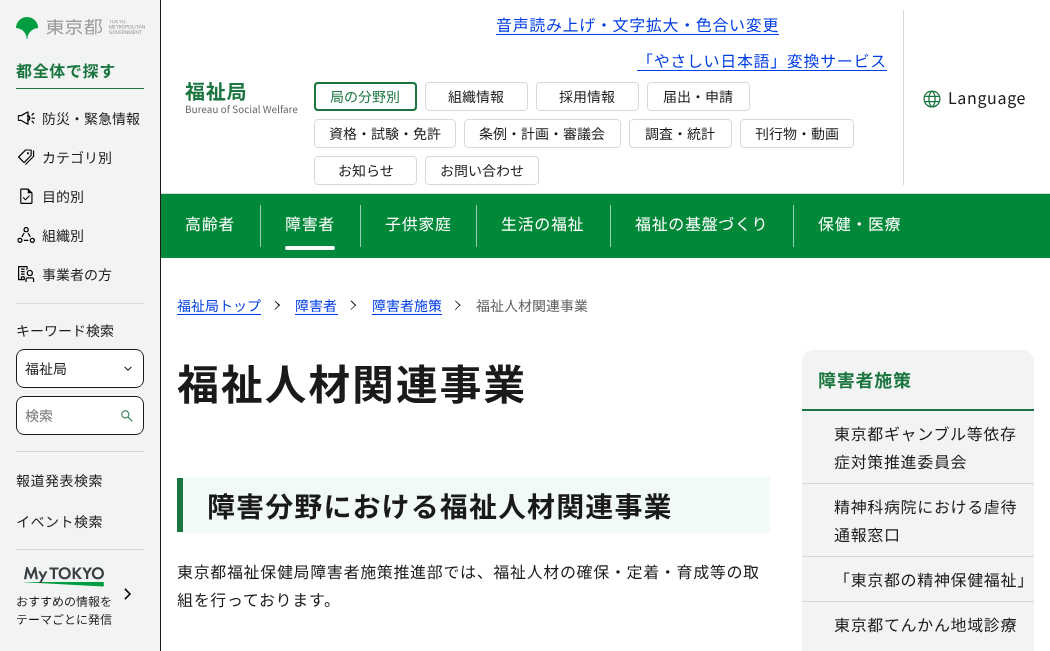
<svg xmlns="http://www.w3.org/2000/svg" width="1050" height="651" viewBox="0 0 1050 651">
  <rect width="100%" height="100%" fill="#ffffff"/>
  <rect x="0" y="0" width="160" height="651" fill="#f1f4f2"/>
  <rect x="160" y="0" width="1" height="651" fill="#1a1a1c"/>
  <image x="16" y="17" width="129" height="22" href="img1.png"/>
  <rect x="16" y="88" width="128" height="1" fill="#1a753f"/>
  <text x="16" y="77" font-family="Noto Sans JP" font-size="16" font-weight="bold" letter-spacing="0.65" fill="#1a753f">都全体で探す</text>
  <image x="17" y="111" width="18" height="14" href="img2.png"/>
  <text x="42" y="124" font-family="Noto Sans JP" font-size="14" fill="#1a1a1c">防災・緊急情報</text>
  <image x="18" y="149" width="17" height="16" href="img3.png"/>
  <text x="42" y="163" font-family="Noto Sans JP" font-size="14" fill="#1a1a1c">カテゴリ別</text>
  <image x="20" y="188" width="13" height="16" href="img4.png"/>
  <text x="42" y="202" font-family="Noto Sans JP" font-size="14" fill="#1a1a1c">目的別</text>
  <image x="17" y="227" width="18" height="16" href="img5.png"/>
  <text x="42" y="241" font-family="Noto Sans JP" font-size="14" fill="#1a1a1c">組織別</text>
  <image x="18" y="266" width="17" height="16" href="img6.png"/>
  <text x="42" y="280" font-family="Noto Sans JP" font-size="14" fill="#1a1a1c">事業者の方</text>
  <rect x="16" y="303" width="128" height="1" fill="#dbdbdb"/>
  <text x="16" y="336" font-family="Noto Sans JP" font-size="14" fill="#1a1a1c">キーワード検索</text>
  <rect x="16" y="349" width="128" height="39" rx="8" fill="#ffffff"/>
  <image x="124" y="366" width="8" height="5" href="img7.png"/>
  <rect x="16.5" y="349.5" width="127" height="38" rx="7.5" fill="none" stroke="#1a1a1c"/>
  <text x="25" y="374" font-family="Noto Sans JP" font-size="14" fill="#1a1a1c">福祉局</text>
  <rect x="16.5" y="396.5" width="127" height="38" rx="7.5" fill="#ffffff" stroke="#1a1a1c"/>
  <text x="25" y="421" font-family="Noto Sans JP" font-size="14" fill="#757575">検索</text>
  <image x="121" y="410" width="12" height="12" href="img8.png"/>
  <rect x="16" y="451" width="128" height="1" fill="#d8d8db"/>
  <text x="16" y="486" font-family="Noto Sans JP" font-size="14" letter-spacing="0.5" fill="#1a1a1c">報道発表検索</text>
  <text x="16" y="527" font-family="Noto Sans JP" font-size="14" letter-spacing="0.5" fill="#1a1a1c">イベント検索</text>
  <rect x="16" y="549" width="128" height="1" fill="#d8d8db"/>
  <image x="24" y="567" width="80" height="20" href="img9.png"/>
  <text x="16" y="606" font-family="Noto Sans JP" font-size="12" fill="#1a1a1c">おすすめの情報を</text>
  <text x="16" y="624" font-family="Noto Sans JP" font-size="12" fill="#1a1a1c">テーマごとに発信</text>
  <image x="124" y="588" width="7" height="12" href="img10.png"/>
  <rect x="161" y="193" width="889" height="1" fill="#d9d9d9"/>
  <image x="185" y="82" width="113" height="32" href="img11.png"/>
  <text x="496" y="31" font-family="Noto Sans JP" font-size="16" letter-spacing="0.65" fill="#003ee5">音声読み上げ・文字拡大・色合い変更</text>
  <rect x="496" y="34" width="283" height="1" fill="#003ee5"/>
  <text x="637" y="67" font-family="Noto Sans JP" font-size="16" letter-spacing="0.65" fill="#003ee5">「やさしい日本語」変換サービス</text>
  <rect x="637" y="70" width="250" height="1" fill="#003ee5"/>
  <rect x="315" y="83" width="101" height="27" rx="3" fill="none" stroke="#1a753f" stroke-width="2"/>
  <text x="330" y="102" font-family="Noto Sans JP" font-size="14" fill="#1a753f">局の分野別</text>
  <rect x="425.5" y="82.5" width="102" height="28" rx="3.5" fill="none" stroke="#d8d8db"/>
  <text x="448" y="102" font-family="Noto Sans JP" font-size="14" fill="#1a1a1c">組織情報</text>
  <rect x="536.5" y="82.5" width="102" height="28" rx="3.5" fill="none" stroke="#d8d8db"/>
  <text x="559" y="102" font-family="Noto Sans JP" font-size="14" fill="#1a1a1c">採用情報</text>
  <rect x="647.5" y="82.5" width="102" height="28" rx="3.5" fill="none" stroke="#d8d8db"/>
  <text x="663" y="102" font-family="Noto Sans JP" font-size="14" fill="#1a1a1c">届出・申請</text>
  <rect x="314.5" y="119.5" width="141" height="28" rx="3.5" fill="none" stroke="#d8d8db"/>
  <text x="329" y="139" font-family="Noto Sans JP" font-size="14" fill="#1a1a1c">資格・試験・免許</text>
  <rect x="464.5" y="119.5" width="156" height="28" rx="3.5" fill="none" stroke="#d8d8db"/>
  <text x="479" y="139" font-family="Noto Sans JP" font-size="14" fill="#1a1a1c">条例・計画・審議会</text>
  <rect x="629.5" y="119.5" width="102" height="28" rx="3.5" fill="none" stroke="#d8d8db"/>
  <text x="645" y="139" font-family="Noto Sans JP" font-size="14" fill="#1a1a1c">調査・統計</text>
  <rect x="740.5" y="119.5" width="113" height="28" rx="3.5" fill="none" stroke="#d8d8db"/>
  <text x="755" y="139" font-family="Noto Sans JP" font-size="14" fill="#1a1a1c">刊行物・動画</text>
  <rect x="314.5" y="156.5" width="102" height="28" rx="3.5" fill="none" stroke="#d8d8db"/>
  <text x="338" y="176" font-family="Noto Sans JP" font-size="14" fill="#1a1a1c">お知らせ</text>
  <rect x="425.5" y="156.5" width="113" height="28" rx="3.5" fill="none" stroke="#d8d8db"/>
  <text x="440" y="176" font-family="Noto Sans JP" font-size="14" fill="#1a1a1c">お問い合わせ</text>
  <rect x="903" y="10" width="1" height="175" fill="#d8d8db"/>
  <image x="923" y="90" width="18" height="18" href="img12.png"/>
  <text x="948" y="104" font-family="Noto Sans JP" font-size="16" letter-spacing="0.65" fill="#1a1a1c">Language</text>
  <rect x="161" y="194" width="889" height="64" fill="#018838"/>
  <text x="185" y="230" font-family="Noto Sans JP" font-size="16" letter-spacing="0.65" fill="#ffffff">高齢者</text>
  <rect x="260" y="205" width="1" height="42" fill="#99cfaf"/>
  <text x="285" y="230" font-family="Noto Sans JP" font-size="16" letter-spacing="0.65" fill="#ffffff">障害者</text>
  <rect x="285" y="246" width="50" height="4" rx="2" fill="#ffffff"/>
  <rect x="360" y="205" width="1" height="42" fill="#99cfaf"/>
  <text x="385" y="230" font-family="Noto Sans JP" font-size="16" letter-spacing="0.65" fill="#ffffff">子供家庭</text>
  <rect x="476" y="205" width="1" height="42" fill="#99cfaf"/>
  <text x="501" y="230" font-family="Noto Sans JP" font-size="16" letter-spacing="0.65" fill="#ffffff">生活の福祉</text>
  <rect x="610" y="205" width="1" height="42" fill="#99cfaf"/>
  <text x="635" y="230" font-family="Noto Sans JP" font-size="16" letter-spacing="0.65" fill="#ffffff">福祉の基盤づくり</text>
  <rect x="793" y="205" width="1" height="42" fill="#99cfaf"/>
  <text x="818" y="230" font-family="Noto Sans JP" font-size="16" letter-spacing="0.65" fill="#ffffff">保健・医療</text>
  <text x="177" y="311" font-family="Noto Sans JP" font-size="14" fill="#003ee5">福祉局トップ</text>
  <rect x="177" y="314" width="84" height="1" fill="#003ee5"/>
  <path d="M275 300.5L280 305L279 306L274.5 301Z" fill="#1a1a1c"/>
  <path d="M279 304.5L280 305L275 310L274.5 309.5Z" fill="#1a1a1c"/>
  <text x="295" y="311" font-family="Noto Sans JP" font-size="14" fill="#003ee5">障害者</text>
  <rect x="295" y="314" width="43" height="1" fill="#003ee5"/>
  <path d="M351.5 300.5L356 305L355.5 306L350.5 301Z" fill="#1a1a1c"/>
  <path d="M355.5 304.5L356 305L351 310L350.5 309.5Z" fill="#1a1a1c"/>
  <text x="372" y="311" font-family="Noto Sans JP" font-size="14" fill="#003ee5">障害者施策</text>
  <rect x="372" y="314" width="70" height="1" fill="#003ee5"/>
  <path d="M455.5 300.5L460.5 305L460 306L455 301Z" fill="#1a1a1c"/>
  <path d="M460 304.5L460.5 305L455.5 310L455 309.5Z" fill="#1a1a1c"/>
  <text x="476" y="311" font-family="Noto Sans JP" font-size="14" fill="#626264">福祉人材関連事業</text>
  <text x="177" y="400" font-family="Noto Sans JP" font-size="42" font-weight="bold" letter-spacing="1.75" fill="#1a1a1c">福祉人材関連事業</text>
  <rect x="177" y="477" width="593" height="56" rx="2" fill="#f2faf5"/>
  <rect x="177" y="478" width="6" height="54" fill="#1a753f"/>
  <text x="207" y="517" font-family="Noto Sans JP" font-size="28" font-weight="bold" letter-spacing="1.1" fill="#1a1a1c">障害分野における福祉人材関連事業</text>
  <text x="177" y="578" font-family="Noto Sans JP" font-size="16" letter-spacing="0.65" fill="#1a1a1c">東京都福祉保健局障害者施策推進部では、福祉人材の確保・定着・育成等の取</text>
  <text x="177" y="606" font-family="Noto Sans JP" font-size="16" letter-spacing="0.65" fill="#1a1a1c">組を行っております。</text>
  <rect x="802" y="350" width="232" height="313" rx="12" fill="#f1f4f2"/>
  <rect x="802" y="409" width="232" height="2" fill="#1a753f"/>
  <text x="818" y="387" font-family="Noto Sans JP" font-size="18" font-weight="bold" letter-spacing="0.75" fill="#1a753f">障害者施策</text>
  <rect x="802" y="483" width="232" height="1" fill="#d8d8db"/>
  <text x="834" y="440" font-family="Noto Sans JP" font-size="16" letter-spacing="0.65" fill="#1a1a1c">東京都ギャンブル等依存</text>
  <text x="834" y="468" font-family="Noto Sans JP" font-size="16" letter-spacing="0.65" fill="#1a1a1c">症対策推進委員会</text>
  <rect x="802" y="556" width="232" height="1" fill="#d8d8db"/>
  <text x="834" y="513" font-family="Noto Sans JP" font-size="16" letter-spacing="0.65" fill="#1a1a1c">精神科病院における虐待</text>
  <text x="834" y="541" font-family="Noto Sans JP" font-size="16" letter-spacing="0.65" fill="#1a1a1c">通報窓口</text>
  <rect x="802" y="601" width="232" height="1" fill="#d8d8db"/>
  <text x="834" y="586" font-family="Noto Sans JP" font-size="16" letter-spacing="0.65" fill="#1a1a1c">「東京都の精神保健福祉」</text>
  <text x="834" y="631" font-family="Noto Sans JP" font-size="16" letter-spacing="0.65" fill="#1a1a1c">東京都てんかん地域診療</text>
</svg>
